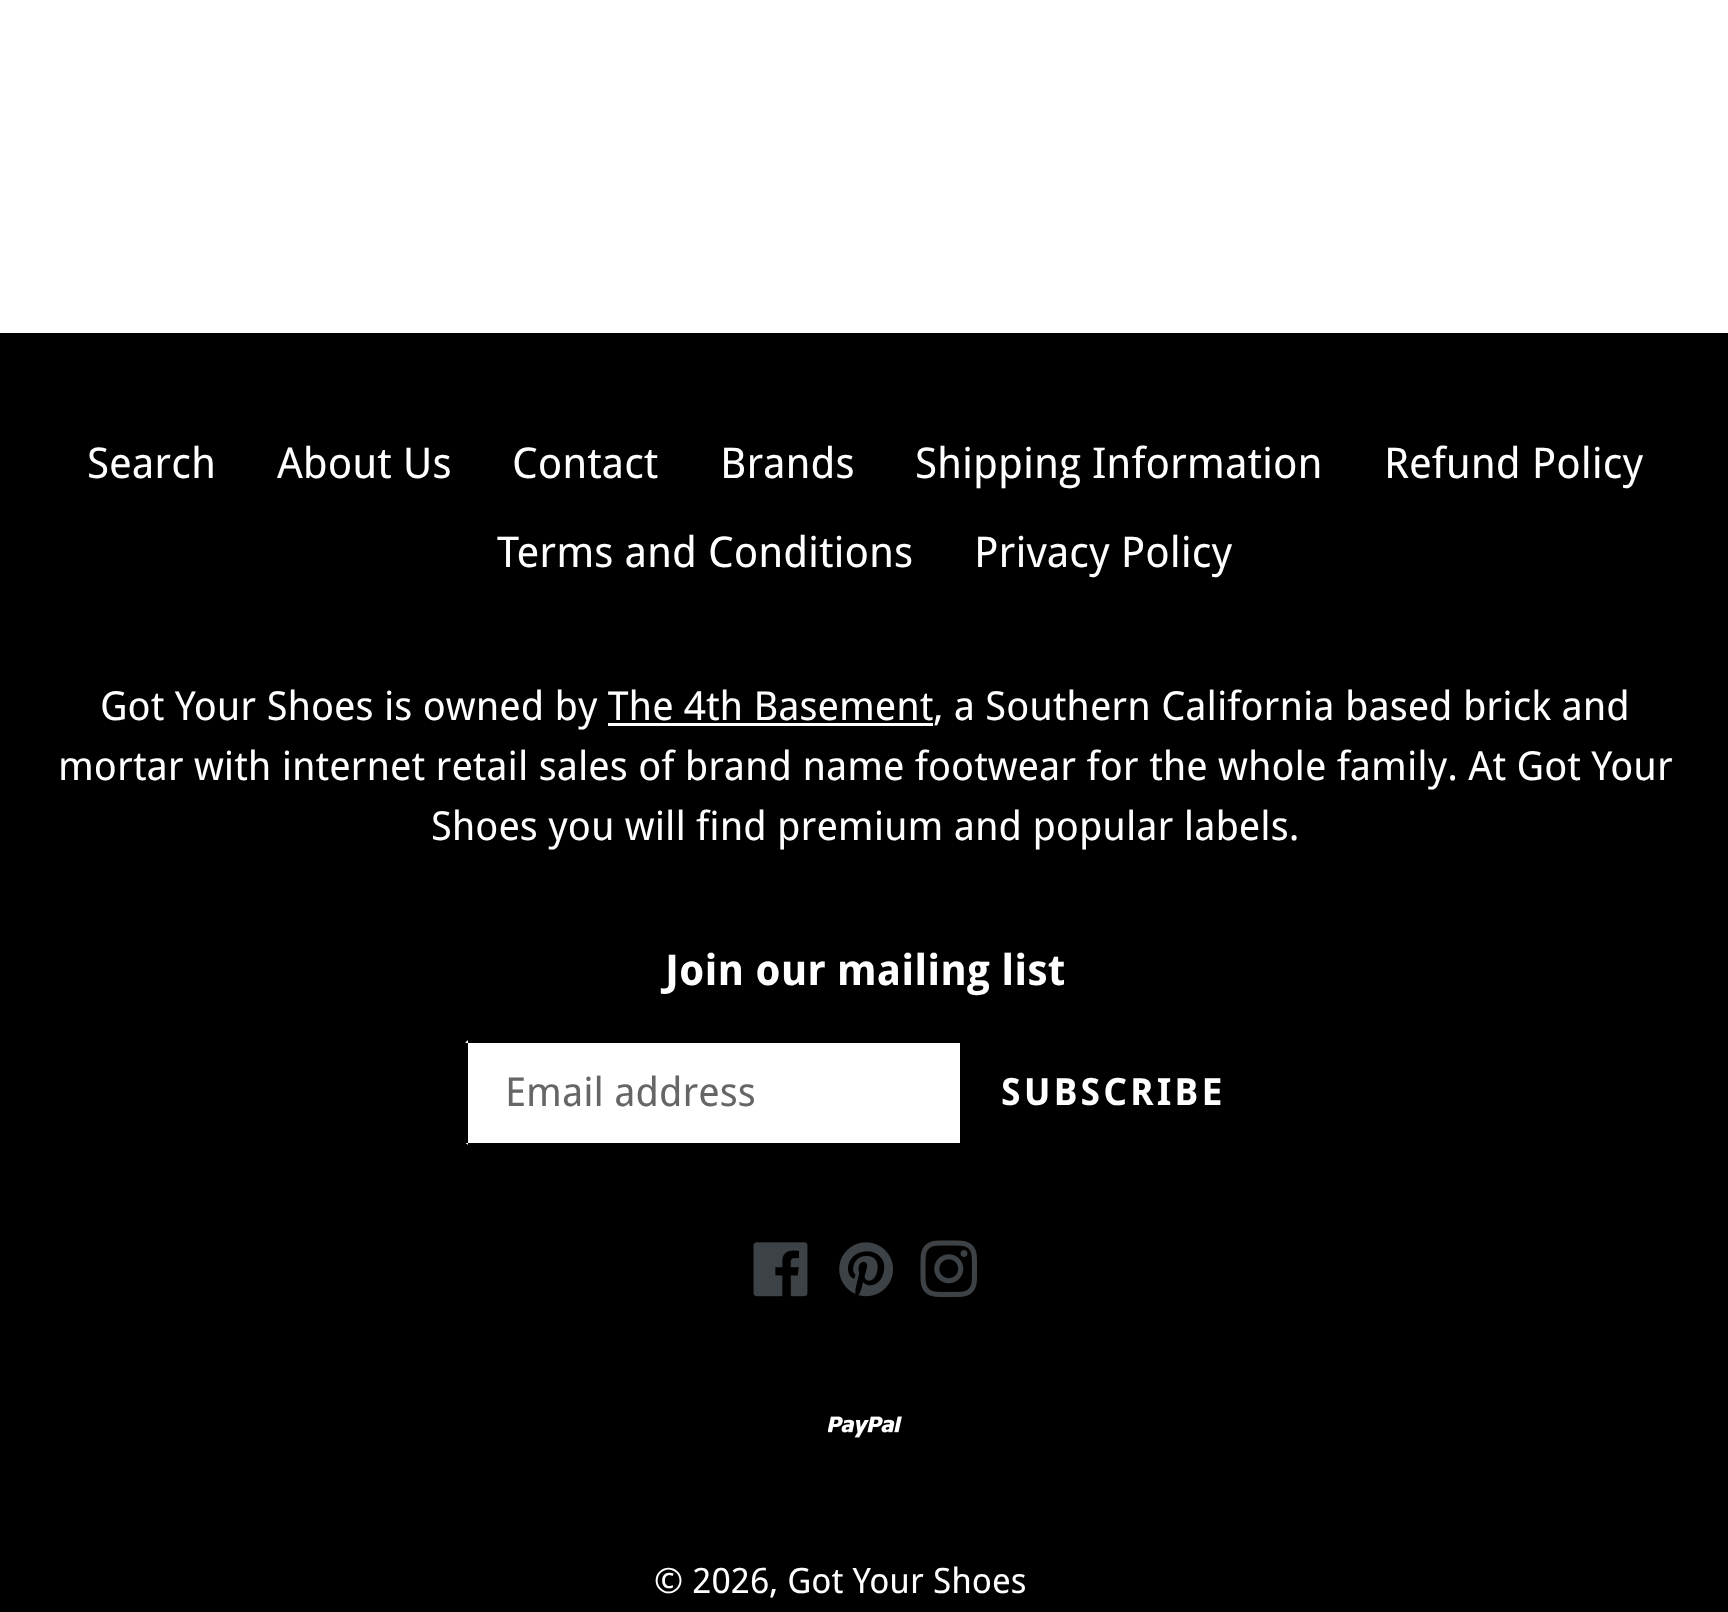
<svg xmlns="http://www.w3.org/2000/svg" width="1728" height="1612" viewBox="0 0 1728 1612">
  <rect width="100%" height="100%" fill="#ffffff"/>
  <rect x="0" y="333" width="1728" height="1279" fill="#000000"/>
  <text x="87" y="478" font-family="Droid Sans" font-size="42.5" fill="#ffffff">Search</text>
  <text x="277" y="478" font-family="Droid Sans" font-size="42.5" fill="#ffffff">About Us</text>
  <text x="512" y="478" font-family="Droid Sans" font-size="42.5" fill="#ffffff">Contact</text>
  <text x="720" y="478" font-family="Droid Sans" font-size="42.5" fill="#ffffff">Brands</text>
  <text x="915" y="478" font-family="Droid Sans" font-size="42.5" fill="#ffffff">Shipping Information</text>
  <text x="1384" y="478" font-family="Droid Sans" font-size="42.5" fill="#ffffff">Refund Policy</text>
  <text x="497" y="567" font-family="Droid Sans" font-size="42.5" fill="#ffffff">Terms and Conditions</text>
  <text x="974" y="567" font-family="Droid Sans" font-size="42.5" fill="#ffffff">Privacy Policy</text>
  <text x="100" y="720" font-family="Droid Sans" font-size="40" fill="#ffffff">Got Your Shoes is owned by The 4th Basement, a Southern California based brick and</text>
  <rect x="608" y="723" width="325" height="3" fill="#ffffff"/>
  <text x="58" y="780" font-family="Droid Sans" font-size="40" fill="#ffffff">mortar with internet retail sales of brand name footwear for the whole family. At Got Your</text>
  <text x="431" y="840" font-family="Droid Sans" font-size="40" fill="#ffffff">Shoes you will find premium and popular labels.</text>
  <text x="665" y="985" font-family="Droid Sans" font-size="42.5" font-weight="bold" fill="#ffffff">Join our mailing list</text>
  <path d="M470 1040H960V1145H470C467 1145 465 1143 465 1140V1045C465 1042 467 1040 470 1040Z" fill="#ffffff"/>
  <rect x="468" y="1040" width="492" height="3" fill="#000000"/>
  <rect x="468" y="1143" width="492" height="2" fill="#000000"/>
  <rect x="465" y="1043" width="3" height="100" fill="#000000"/>
  <text x="505" y="1106" font-family="Droid Sans" font-size="40" fill="#666666">Email address</text>
  <text x="1001" y="1105" font-family="Droid Sans" font-size="37.5" font-weight="bold" letter-spacing="3" fill="#ffffff">SUBSCRIBE</text>
  <image x="753" y="1242" width="55" height="55" href="img1.png"/>
  <image x="839" y="1242" width="54" height="55" href="img2.png"/>
  <image x="920" y="1240" width="58" height="58" href="img3.png"/>
  <image x="828" y="1416" width="74" height="22" href="img4.png"/>
  <text x="654" y="1593" font-family="Droid Sans" font-size="35" fill="#ffffff">© 2026, Got Your Shoes</text>
</svg>
